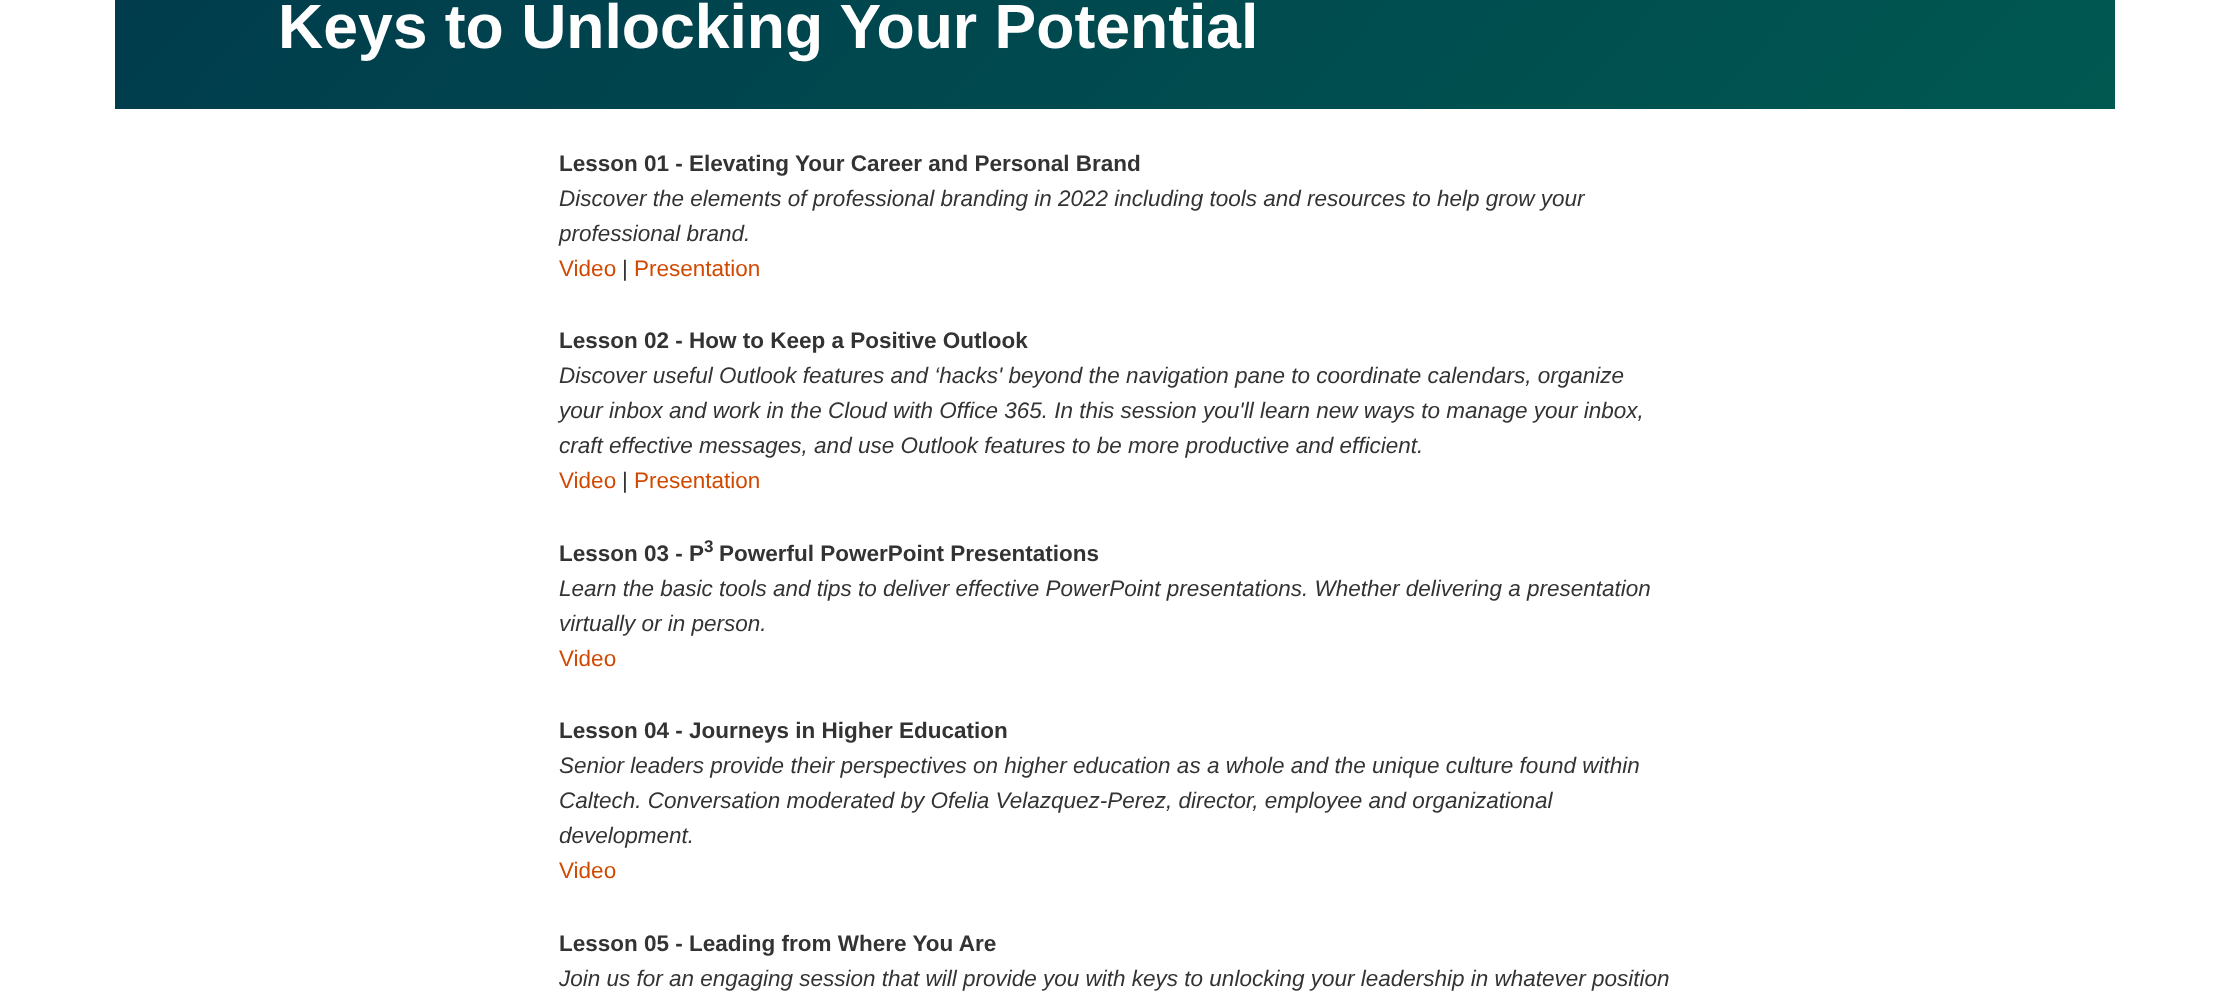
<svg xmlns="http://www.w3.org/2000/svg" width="2229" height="1005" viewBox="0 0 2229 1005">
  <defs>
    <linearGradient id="g1" gradientUnits="userSpaceOnUse" x1="547" y1="-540" x2="1683" y2="556"><stop offset="0" stop-color="#003b4c"/><stop offset="1" stop-color="#005851"/></linearGradient>
  </defs>
  <rect width="100%" height="100%" fill="#ffffff"/>
  <rect x="115" y="0" width="2000" height="109" fill="url(#g1)"/>
  <text x="278" y="48" font-family="Liberation Sans" font-size="62.5" font-weight="bold" fill="#ffffff">Keys to Unlocking Your Potential</text>
  <text x="559" y="171" font-family="Liberation Sans" font-size="22.5" font-weight="bold" fill="#333333">Lesson 01 - Elevating Your Career and Personal Brand</text>
  <text x="559" y="206" font-family="Liberation Sans" font-size="22.5" font-style="italic" fill="#333333">Discover the elements of professional branding in 2022 including tools and resources to help grow your</text>
  <text x="559" y="241" font-family="Liberation Sans" font-size="22.5" font-style="italic" fill="#333333">professional brand.</text>
  <text x="559" y="276" font-family="Liberation Sans" font-size="22.5" fill="#d14900">Video</text>
  <text x="622" y="276" font-family="Liberation Sans" font-size="22.5" fill="#333333">|</text>
  <text x="634" y="276" font-family="Liberation Sans" font-size="22.5" fill="#d14900">Presentation</text>
  <text x="559" y="348" font-family="Liberation Sans" font-size="22.5" font-weight="bold" fill="#333333">Lesson 02 - How to Keep a Positive Outlook</text>
  <text x="559" y="383" font-family="Liberation Sans" font-size="22.5" font-style="italic" fill="#333333">Discover useful Outlook features and ‘hacks' beyond the navigation pane to coordinate calendars, organize</text>
  <text x="559" y="418" font-family="Liberation Sans" font-size="22.5" font-style="italic" fill="#333333">your inbox and work in the Cloud with Office 365. In this session you'll learn new ways to manage your inbox,</text>
  <text x="559" y="453" font-family="Liberation Sans" font-size="22.5" font-style="italic" fill="#333333">craft effective messages, and use Outlook features to be more productive and efficient.</text>
  <text x="559" y="488" font-family="Liberation Sans" font-size="22.5" fill="#d14900">Video</text>
  <text x="622" y="488" font-family="Liberation Sans" font-size="22.5" fill="#333333">|</text>
  <text x="634" y="488" font-family="Liberation Sans" font-size="22.5" fill="#d14900">Presentation</text>
  <text x="559" y="561" font-family="Liberation Sans" font-size="22.5" font-weight="bold" fill="#333333">Lesson 03 - P</text>
  <text x="704" y="552" font-family="Liberation Sans" font-size="17" font-weight="bold" fill="#333333">3</text>
  <text x="719" y="561" font-family="Liberation Sans" font-size="22.5" font-weight="bold" fill="#333333">Powerful PowerPoint Presentations</text>
  <text x="559" y="596" font-family="Liberation Sans" font-size="22.5" font-style="italic" fill="#333333">Learn the basic tools and tips to deliver effective PowerPoint presentations. Whether delivering a presentation</text>
  <text x="559" y="631" font-family="Liberation Sans" font-size="22.5" font-style="italic" fill="#333333">virtually or in person.</text>
  <text x="559" y="666" font-family="Liberation Sans" font-size="22.5" fill="#d14900">Video</text>
  <text x="559" y="738" font-family="Liberation Sans" font-size="22.5" font-weight="bold" fill="#333333">Lesson 04 - Journeys in Higher Education</text>
  <text x="559" y="773" font-family="Liberation Sans" font-size="22.5" font-style="italic" fill="#333333">Senior leaders provide their perspectives on higher education as a whole and the unique culture found within</text>
  <text x="559" y="808" font-family="Liberation Sans" font-size="22.5" font-style="italic" fill="#333333">Caltech. Conversation moderated by Ofelia Velazquez-Perez, director, employee and organizational</text>
  <text x="559" y="843" font-family="Liberation Sans" font-size="22.5" font-style="italic" fill="#333333">development.</text>
  <text x="559" y="878" font-family="Liberation Sans" font-size="22.5" fill="#d14900">Video</text>
  <text x="559" y="951" font-family="Liberation Sans" font-size="22.5" font-weight="bold" fill="#333333">Lesson 05 - Leading from Where You Are</text>
  <text x="559" y="986" font-family="Liberation Sans" font-size="22.5" font-style="italic" fill="#333333">Join us for an engaging session that will provide you with keys to unlocking your leadership in whatever position</text>
</svg>
